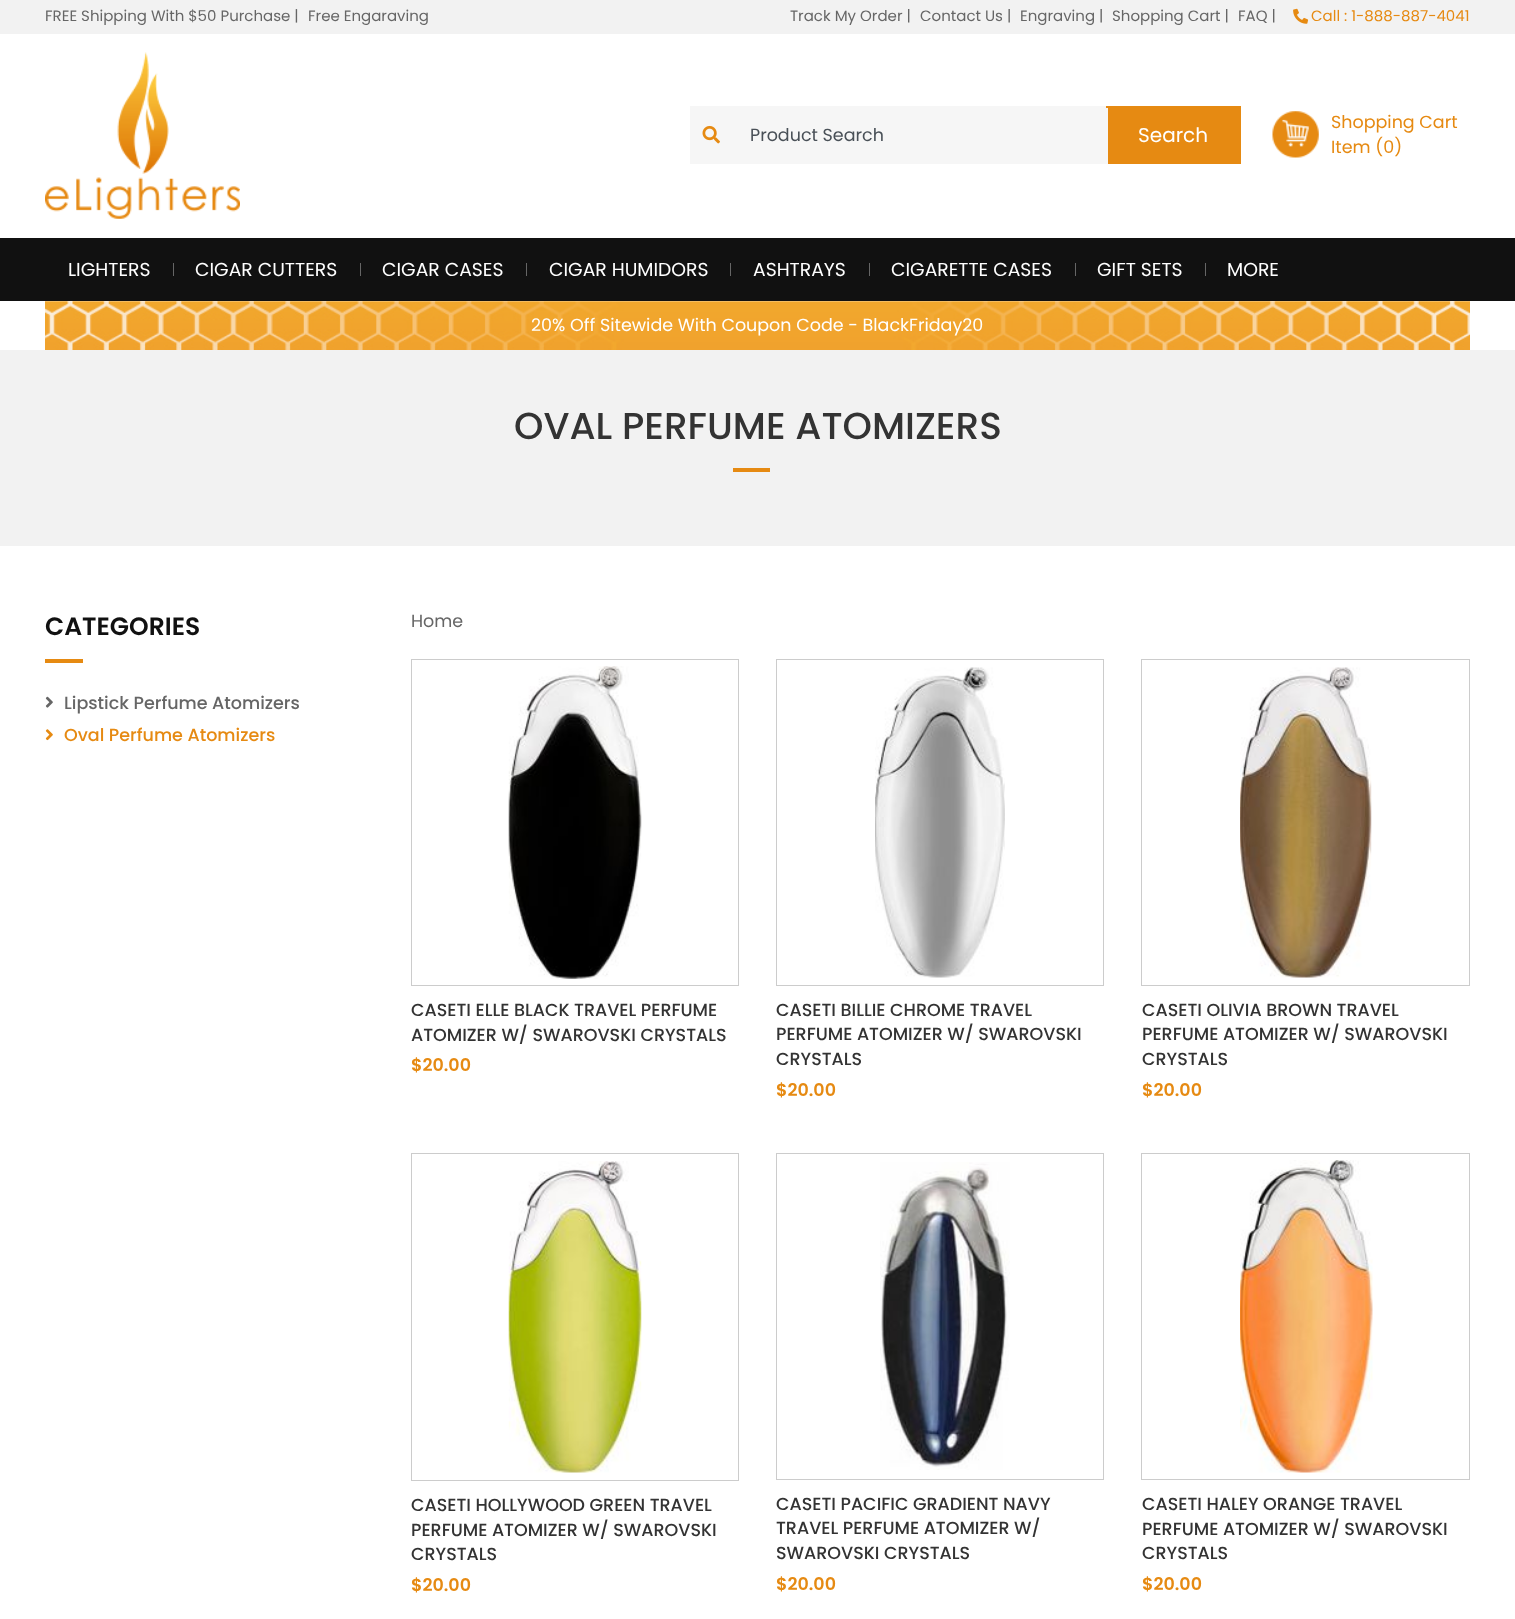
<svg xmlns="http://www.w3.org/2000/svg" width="1515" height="1619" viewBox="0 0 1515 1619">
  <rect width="100%" height="100%" fill="#ffffff"/>
  <rect x="0" y="0" width="1515" height="34" fill="#f2f2f2"/>
  <text x="45" y="21" font-family="Poppins" font-size="15" fill="#666666">FREE Shipping With $50 Purchase |</text>
  <text x="308" y="21" font-family="Poppins" font-size="15" fill="#666666">Free Engaraving</text>
  <text x="790" y="21" font-family="Poppins" font-size="15" fill="#666666">Track My Order |</text>
  <text x="920" y="21" font-family="Poppins" font-size="15" fill="#666666">Contact Us |</text>
  <text x="1020" y="21" font-family="Poppins" font-size="15" fill="#666666">Engraving |</text>
  <text x="1112" y="21" font-family="Poppins" font-size="15" fill="#666666">Shopping Cart |</text>
  <text x="1238" y="21" font-family="Poppins" font-size="15" fill="#666666">FAQ |</text>
  <image x="1293" y="8" width="16" height="16" href="img1.png"/>
  <text x="1311" y="21" font-family="Poppins" font-size="15" fill="#e68a12">Call : 1-888-887-4041</text>
  <image x="45" y="52" width="195" height="167" href="img2.png"/>
  <rect x="690" y="106" width="416" height="58" fill="#f6f6f6"/>
  <image x="702" y="125" width="18" height="19" href="img3.png"/>
  <rect x="1106" y="106" width="135" height="58" fill="#e68a12"/>
  <rect x="1106" y="108" width="2" height="56" fill="#f6f6f6"/>
  <text x="750" y="141" font-family="Poppins" font-size="17.5" fill="#495057">Product Search</text>
  <text x="1138" y="142" font-family="Poppins" font-size="20" fill="#ffffff">Search</text>
  <image x="1272" y="111" width="47" height="47" href="img4.png"/>
  <text x="1331" y="128" font-family="Poppins" font-size="17.5" fill="#e68a12">Shopping Cart</text>
  <text x="1331" y="153" font-family="Poppins" font-size="17.5" fill="#e68a12">Item (0)</text>
  <rect x="0" y="238" width="1515" height="63" fill="#111111"/>
  <text x="68" y="276" font-family="Poppins" font-size="18.75" fill="#ffffff">LIGHTERS</text>
  <rect x="173" y="263" width="1" height="13" fill="#666666"/>
  <text x="195" y="276" font-family="Poppins" font-size="18.75" fill="#ffffff">CIGAR CUTTERS</text>
  <rect x="360" y="263" width="1" height="13" fill="#666666"/>
  <text x="382" y="276" font-family="Poppins" font-size="18.75" fill="#ffffff">CIGAR CASES</text>
  <rect x="526" y="263" width="1" height="13" fill="#666666"/>
  <text x="549" y="276" font-family="Poppins" font-size="18.75" fill="#ffffff">CIGAR HUMIDORS</text>
  <rect x="730" y="263" width="1" height="13" fill="#666666"/>
  <text x="753" y="276" font-family="Poppins" font-size="18.75" fill="#ffffff">ASHTRAYS</text>
  <rect x="869" y="263" width="1" height="13" fill="#666666"/>
  <text x="891" y="276" font-family="Poppins" font-size="18.75" fill="#ffffff">CIGARETTE CASES</text>
  <rect x="1075" y="263" width="1" height="13" fill="#666666"/>
  <text x="1097" y="276" font-family="Poppins" font-size="18.75" fill="#ffffff">GIFT SETS</text>
  <rect x="1205" y="263" width="1" height="13" fill="#666666"/>
  <text x="1227" y="276" font-family="Poppins" font-size="18.75" fill="#ffffff">MORE</text>
  <image x="45" y="301" width="1425" height="49" href="img5.png"/>
  <text x="531" y="331" font-family="Poppins" font-size="17.5" fill="#ffffff">20% Off Sitewide With Coupon Code - BlackFriday20</text>
  <rect x="0" y="350" width="1515" height="196" fill="#f2f2f2"/>
  <text x="514" y="439" font-family="Poppins" font-size="37.5" font-weight="500" fill="#333333">OVAL PERFUME ATOMIZERS</text>
  <rect x="733" y="468" width="37" height="4" fill="#e68a12"/>
  <text x="45" y="635" font-family="Poppins" font-size="25" font-weight="600" fill="#111111">CATEGORIES</text>
  <rect x="45" y="659" width="38" height="4" fill="#e68a12"/>
  <image x="45" y="696" width="8" height="12" href="img6.png"/>
  <text x="64" y="709" font-family="Poppins" font-size="17.5" font-weight="500" fill="#666666">Lipstick Perfume Atomizers</text>
  <image x="45" y="729" width="8" height="12" href="img7.png"/>
  <text x="64" y="741" font-family="Poppins" font-size="17.5" font-weight="500" fill="#e68a12">Oval Perfume Atomizers</text>
  <text x="411" y="627" font-family="Poppins" font-size="17.5" fill="#666666">Home</text>
  <rect x="411.5" y="659.5" width="327" height="326" fill="none" stroke="#cccccc"/>
  <image x="508" y="666" width="134" height="313" href="img8.png"/>
  <text x="411" y="1016" font-family="Poppins" font-size="17.5" font-weight="500" fill="#333333">CASETI ELLE BLACK TRAVEL PERFUME</text>
  <text x="411" y="1041" font-family="Poppins" font-size="17.5" font-weight="500" fill="#333333">ATOMIZER W/ SWAROVSKI CRYSTALS</text>
  <text x="411" y="1071" font-family="Poppins" font-size="17.5" font-weight="600" fill="#e68a12">$20.00</text>
  <rect x="776.5" y="659.5" width="327" height="326" fill="none" stroke="#cccccc"/>
  <image x="875" y="667" width="130" height="311" href="img9.png"/>
  <text x="776" y="1016" font-family="Poppins" font-size="17.5" font-weight="500" fill="#333333">CASETI BILLIE CHROME TRAVEL</text>
  <text x="776" y="1040" font-family="Poppins" font-size="17.5" font-weight="500" fill="#333333">PERFUME ATOMIZER W/ SWAROVSKI</text>
  <text x="776" y="1065" font-family="Poppins" font-size="17.5" font-weight="500" fill="#333333">CRYSTALS</text>
  <text x="776" y="1096" font-family="Poppins" font-size="17.5" font-weight="600" fill="#e68a12">$20.00</text>
  <rect x="1141.5" y="659.5" width="328" height="326" fill="none" stroke="#cccccc"/>
  <image x="1240" y="667" width="132" height="311" href="img10.png"/>
  <text x="1142" y="1016" font-family="Poppins" font-size="17.5" font-weight="500" fill="#333333">CASETI OLIVIA BROWN TRAVEL</text>
  <text x="1142" y="1040" font-family="Poppins" font-size="17.5" font-weight="500" fill="#333333">PERFUME ATOMIZER W/ SWAROVSKI</text>
  <text x="1142" y="1065" font-family="Poppins" font-size="17.5" font-weight="500" fill="#333333">CRYSTALS</text>
  <text x="1142" y="1096" font-family="Poppins" font-size="17.5" font-weight="600" fill="#e68a12">$20.00</text>
  <rect x="411.5" y="1153.5" width="327" height="327" fill="none" stroke="#cccccc"/>
  <image x="508" y="1161" width="134" height="312" href="img11.png"/>
  <text x="411" y="1511" font-family="Poppins" font-size="17.5" font-weight="500" fill="#333333">CASETI HOLLYWOOD GREEN TRAVEL</text>
  <text x="411" y="1536" font-family="Poppins" font-size="17.5" font-weight="500" fill="#333333">PERFUME ATOMIZER W/ SWAROVSKI</text>
  <text x="411" y="1560" font-family="Poppins" font-size="17.5" font-weight="500" fill="#333333">CRYSTALS</text>
  <text x="411" y="1591" font-family="Poppins" font-size="17.5" font-weight="600" fill="#e68a12">$20.00</text>
  <rect x="776.5" y="1153.5" width="327" height="326" fill="none" stroke="#cccccc"/>
  <image x="880" y="1162" width="130" height="308" href="img12.png"/>
  <text x="776" y="1510" font-family="Poppins" font-size="17.5" font-weight="500" fill="#333333">CASETI PACIFIC GRADIENT NAVY</text>
  <text x="776" y="1534" font-family="Poppins" font-size="17.5" font-weight="500" fill="#333333">TRAVEL PERFUME ATOMIZER W/</text>
  <text x="776" y="1559" font-family="Poppins" font-size="17.5" font-weight="500" fill="#333333">SWAROVSKI CRYSTALS</text>
  <text x="776" y="1590" font-family="Poppins" font-size="17.5" font-weight="600" fill="#e68a12">$20.00</text>
  <rect x="1141.5" y="1153.5" width="328" height="326" fill="none" stroke="#cccccc"/>
  <image x="1240" y="1160" width="133" height="313" href="img13.png"/>
  <text x="1142" y="1510" font-family="Poppins" font-size="17.5" font-weight="500" fill="#333333">CASETI HALEY ORANGE TRAVEL</text>
  <text x="1142" y="1535" font-family="Poppins" font-size="17.5" font-weight="500" fill="#333333">PERFUME ATOMIZER W/ SWAROVSKI</text>
  <text x="1142" y="1559" font-family="Poppins" font-size="17.5" font-weight="500" fill="#333333">CRYSTALS</text>
  <text x="1142" y="1590" font-family="Poppins" font-size="17.5" font-weight="600" fill="#e68a12">$20.00</text>
</svg>
